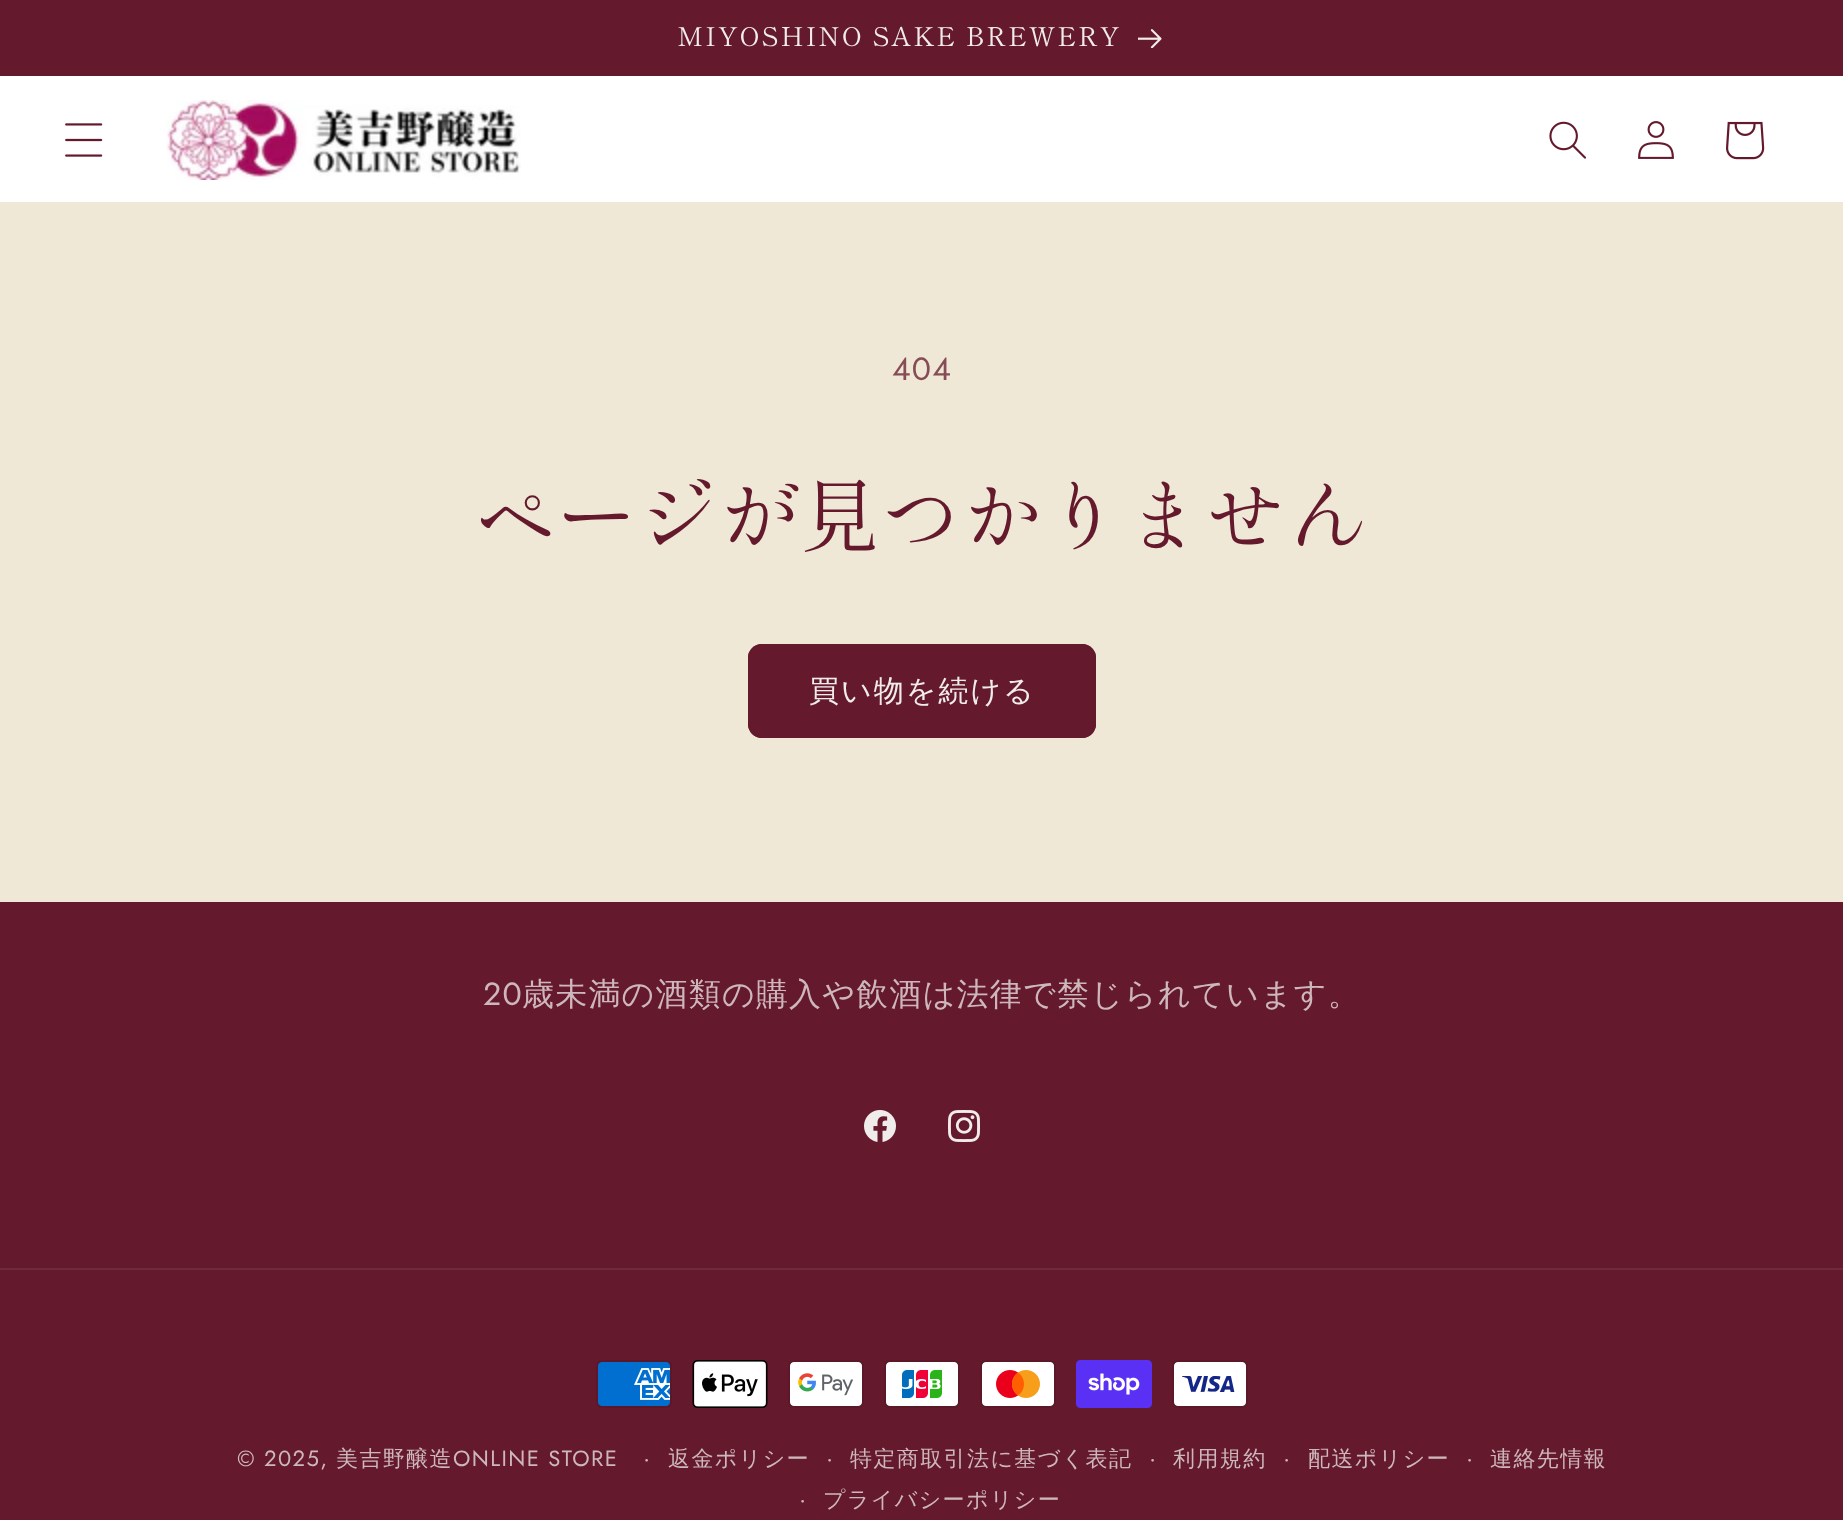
<svg xmlns="http://www.w3.org/2000/svg" width="1843" height="1520" viewBox="0 0 1843 1520">
  <rect width="100%" height="100%" fill="#efe8d6"/>
  <rect x="0" y="0" width="1843" height="76" fill="#64192c"/>
  <text x="677" y="46" font-family="Shippori Mincho" font-size="26" letter-spacing="2" fill="#f1ecec">MIYOSHINO SAKE BREWERY</text>
  <image x="1138" y="29" width="24" height="19" href="img1.png"/>
  <rect x="0" y="76" width="1843" height="126" fill="#ffffff"/>
  <image x="65" y="123" width="38" height="34" href="img2.png"/>
  <image x="166" y="100" width="355" height="80" href="img3.png"/>
  <image x="1549" y="121" width="37" height="38" href="img4.png"/>
  <image x="1638" y="121" width="36" height="38" href="img5.png"/>
  <image x="1726" y="121" width="39" height="39" href="img6.png"/>
  <text x="892" y="380" font-family="Jost" font-size="32" letter-spacing="1.2" fill="#874d57">404</text>
  <text x="475" y="546" font-family="Shippori Mincho" font-size="80" letter-spacing="1.2" fill="#64192c">ページが見つかりません</text>
  <rect x="748" y="644" width="348" height="94" rx="14" fill="#64192c"/>
  <rect x="749" y="645" width="346" height="92" rx="13" fill="none" stroke="#64192c" stroke-width="2"/>
  <text x="809" y="701" font-family="WenQuanYi Zen Hei" font-size="30" font-weight="500" letter-spacing="2" fill="#f1ecec">買い物を続ける</text>
  <rect x="0" y="902" width="1843" height="618" fill="#64192c"/>
  <text x="483" y="1005" font-family="Jost" font-size="32" letter-spacing="1.2" fill="#ceb7bc">20</text>
  <text x="522" y="1005" font-family="WenQuanYi Zen Hei" font-size="32" font-weight="500" letter-spacing="1.2" fill="#ceb7bc">歳未満の酒類の購入や飲酒は法律で禁じられています。</text>
  <image x="864" y="1110" width="32" height="32" href="img7.png"/>
  <image x="948" y="1110" width="32" height="32" href="img8.png"/>
  <rect x="0" y="1268" width="1843" height="2" fill="#6f2a3b"/>
  <image x="596" y="1360" width="76" height="48" href="img9.png"/>
  <image x="692" y="1360" width="76" height="48" href="img10.png"/>
  <image x="788" y="1360" width="76" height="48" href="img11.png"/>
  <image x="884" y="1360" width="76" height="48" href="img12.png"/>
  <image x="980" y="1360" width="76" height="48" href="img13.png"/>
  <image x="1076" y="1360" width="76" height="48" href="img14.png"/>
  <image x="1172" y="1360" width="76" height="48" href="img15.png"/>
  <text x="237" y="1466" font-family="Jost" font-size="22" letter-spacing="1.4" fill="#ceb7bc">© 2025,</text>
  <text x="336" y="1466" font-family="WenQuanYi Zen Hei" font-size="22" font-weight="500" letter-spacing="1.4" fill="#ceb7bc">美吉野醸造</text>
  <text x="453" y="1466" font-family="Jost" font-size="22" letter-spacing="1.4" fill="#ceb7bc">ONLINE STORE</text>
  <text x="643" y="1466" font-family="Jost" font-size="24" letter-spacing="1.4" fill="#ceb7bc">·</text>
  <text x="668" y="1466" font-family="WenQuanYi Zen Hei" font-size="22" font-weight="500" letter-spacing="1.4" fill="#ceb7bc">返金ポリシー</text>
  <text x="826" y="1466" font-family="Jost" font-size="24" letter-spacing="1.4" fill="#ceb7bc">·</text>
  <text x="850" y="1466" font-family="WenQuanYi Zen Hei" font-size="22" font-weight="500" letter-spacing="1.4" fill="#ceb7bc">特定商取引法に基づく表記</text>
  <text x="1149" y="1466" font-family="Jost" font-size="24" letter-spacing="1.4" fill="#ceb7bc">·</text>
  <text x="1173" y="1466" font-family="WenQuanYi Zen Hei" font-size="22" font-weight="500" letter-spacing="1.4" fill="#ceb7bc">利用規約</text>
  <text x="1283" y="1466" font-family="Jost" font-size="24" letter-spacing="1.4" fill="#ceb7bc">·</text>
  <text x="1308" y="1466" font-family="WenQuanYi Zen Hei" font-size="22" font-weight="500" letter-spacing="1.4" fill="#ceb7bc">配送ポリシー</text>
  <text x="1466" y="1466" font-family="Jost" font-size="24" letter-spacing="1.4" fill="#ceb7bc">·</text>
  <text x="1490" y="1466" font-family="WenQuanYi Zen Hei" font-size="22" font-weight="500" letter-spacing="1.4" fill="#ceb7bc">連絡先情報</text>
  <text x="799" y="1507" font-family="Jost" font-size="24" letter-spacing="1.4" fill="#ceb7bc">·</text>
  <text x="823" y="1507" font-family="WenQuanYi Zen Hei" font-size="22" font-weight="500" letter-spacing="1.4" fill="#ceb7bc">プライバシーポリシー</text>
</svg>
